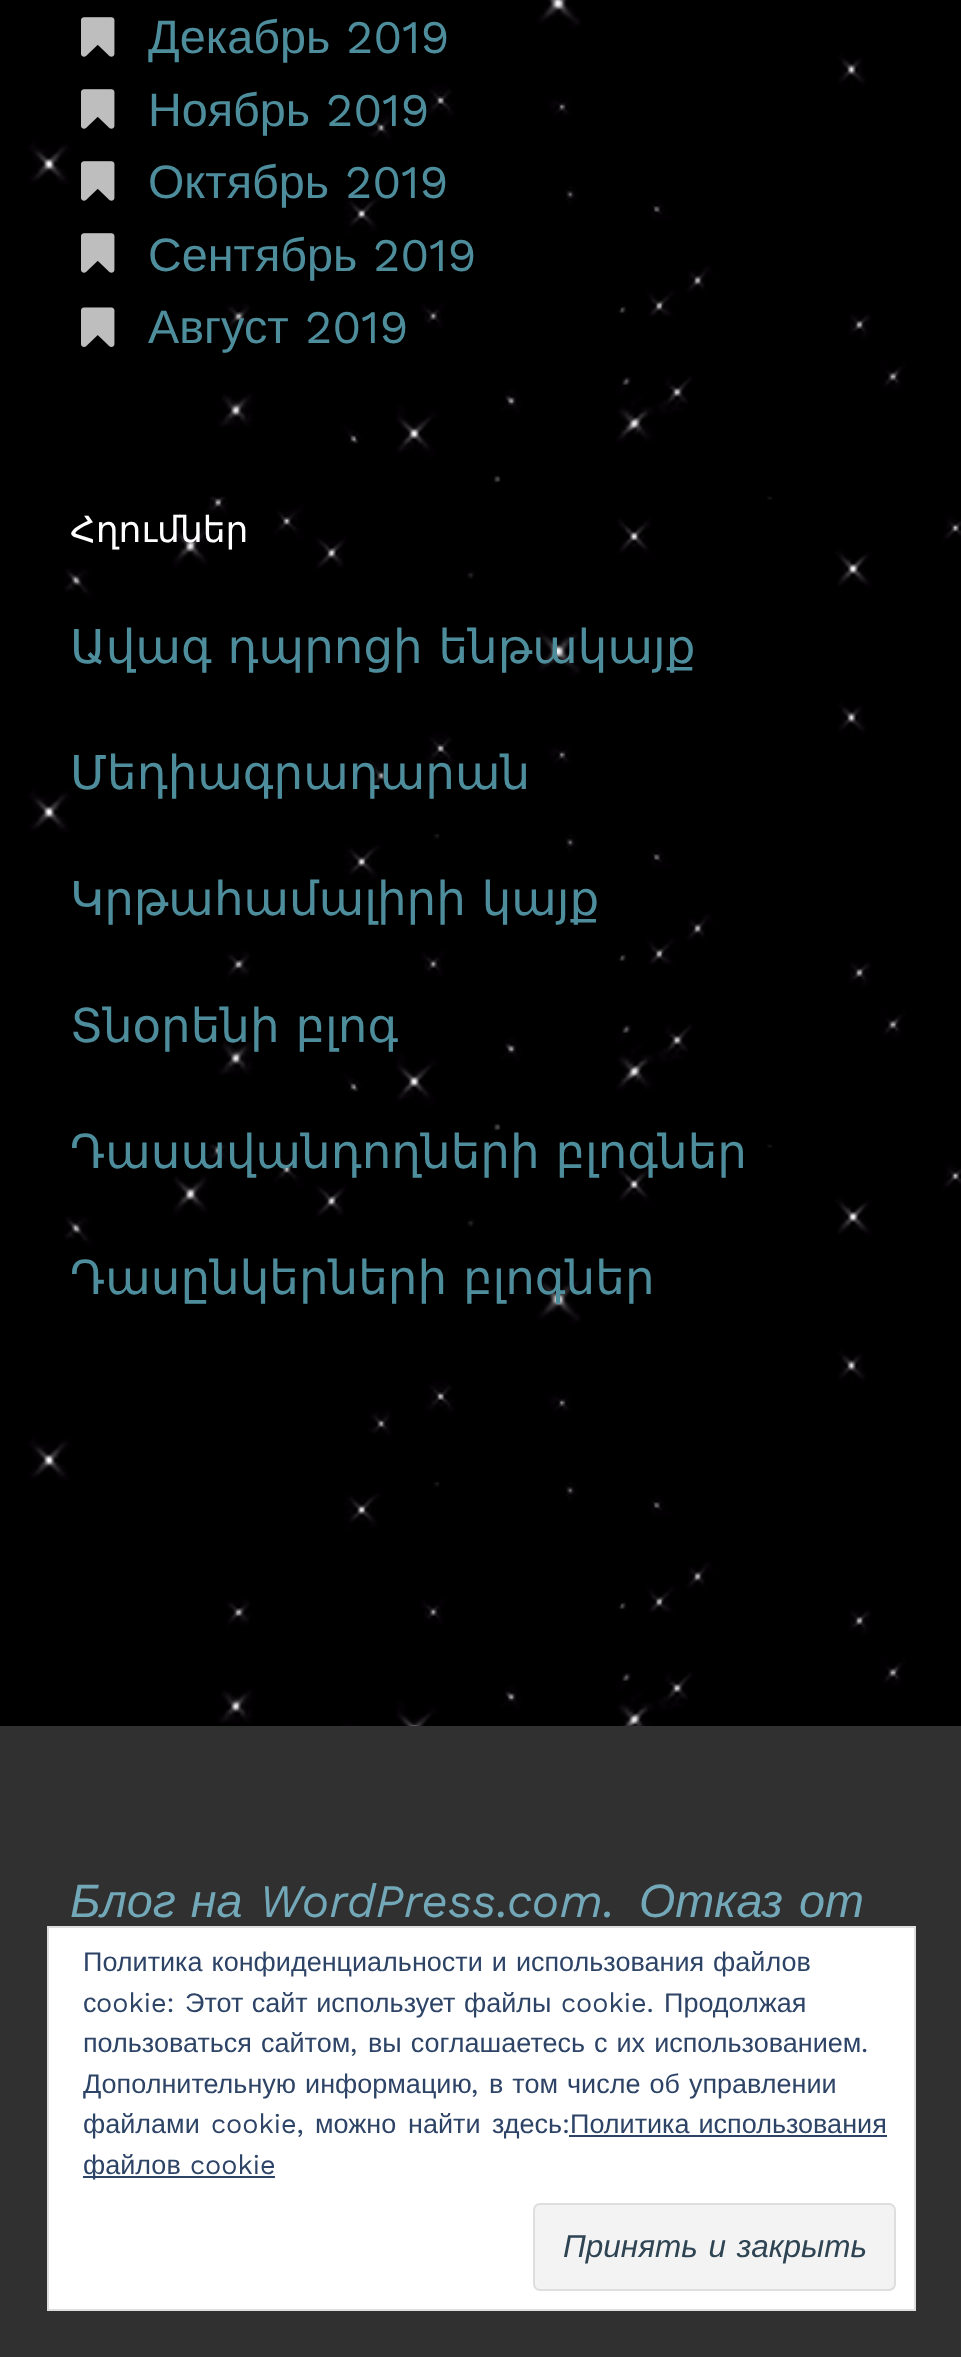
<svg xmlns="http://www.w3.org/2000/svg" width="961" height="2357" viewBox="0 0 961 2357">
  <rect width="100%" height="100%" fill="#ffffff"/>
  <image x="0" y="0" width="961" height="1726" href="img1.png"/>
  <image x="81" y="17" width="34" height="40" href="img2.png"/>
  <text x="148" y="53" font-family="Liberation Sans" font-size="46.75" fill="#4e8d9c">Декабрь</text>
  <text x="346" y="53" font-family="Work Sans" font-size="46.75" fill="#4e8d9c">2019</text>
  <image x="81" y="89" width="34" height="40" href="img2.png"/>
  <text x="148" y="126" font-family="Liberation Sans" font-size="46.75" fill="#4e8d9c">Ноябрь</text>
  <text x="326" y="126" font-family="Work Sans" font-size="46.75" fill="#4e8d9c">2019</text>
  <image x="81" y="161" width="34" height="40" href="img2.png"/>
  <text x="148" y="198" font-family="Liberation Sans" font-size="46.75" fill="#4e8d9c">Октябрь</text>
  <text x="345" y="198" font-family="Work Sans" font-size="46.75" fill="#4e8d9c">2019</text>
  <image x="81" y="233" width="34" height="40" href="img2.png"/>
  <text x="148" y="271" font-family="Liberation Sans" font-size="46.75" fill="#4e8d9c">Сентябрь</text>
  <text x="373" y="271" font-family="Work Sans" font-size="46.75" fill="#4e8d9c">2019</text>
  <image x="81" y="307" width="34" height="40" href="img3.png"/>
  <text x="148" y="343" font-family="Liberation Sans" font-size="46.75" fill="#4e8d9c">Август</text>
  <text x="305" y="343" font-family="Work Sans" font-size="46.75" fill="#4e8d9c">2019</text>
  <text x="70" y="542" font-family="DejaVu Sans" font-size="36" fill="#ffffff">Հղումներ</text>
  <text x="70" y="663" word-spacing="1" font-family="DejaVu Sans" font-size="46.75" fill="#4e8d9c">Ավագ դպրոցի ենթակայք</text>
  <text x="70" y="789" font-family="DejaVu Sans" font-size="46.75" fill="#4e8d9c">Մեդիագրադարան</text>
  <text x="70" y="915" word-spacing="1" font-family="DejaVu Sans" font-size="46.75" fill="#4e8d9c">Կրթահամալիրի կայք</text>
  <text x="70" y="1042" word-spacing="1" font-family="DejaVu Sans" font-size="46.75" fill="#4e8d9c">Տնօրենի բլոգ</text>
  <text x="70" y="1168" word-spacing="1" font-family="DejaVu Sans" font-size="46.75" fill="#4e8d9c">Դասավանդողների բլոգներ</text>
  <text x="70" y="1294" word-spacing="1" font-family="DejaVu Sans" font-size="46.75" fill="#4e8d9c">Դասընկերների բլոգներ</text>
  <rect x="0" y="1726" width="961" height="631" fill="#303030"/>
  <text x="70" y="1917" word-spacing="2" font-family="Liberation Sans" font-size="46.75" font-style="italic" fill="#73a8b8">Блог на</text>
  <text x="259" y="1917" font-family="Work Sans" font-size="46.75" font-style="italic" fill="#73a8b8">WordPress.com.</text>
  <text x="639" y="1917" word-spacing="3" font-family="Liberation Sans" font-size="46.75" font-style="italic" fill="#73a8b8">Отказ от</text>
  <rect x="48" y="1927" width="867" height="383" fill="#ffffff" stroke="#dedede" stroke-width="2"/>
  <text x="83" y="1971" word-spacing="1.5" font-family="Liberation Sans" font-size="27" fill="#2e4467">Политика конфиденциальности и использования файлов</text>
  <text x="83" y="2012" font-family="Liberation Sans" font-size="27" fill="#2e4467">с</text>
  <text x="96" y="2012" font-family="Work Sans" font-size="27" fill="#2e4467">ookie:</text>
  <text x="185" y="2012" word-spacing="1" font-family="Liberation Sans" font-size="27" fill="#2e4467">Этот сайт использует файлы</text>
  <text x="561" y="2012" font-family="Work Sans" font-size="27" fill="#2e4467">cookie.</text>
  <text x="664" y="2012" font-family="Liberation Sans" font-size="27" fill="#2e4467">Продолжая</text>
  <text x="83" y="2052" word-spacing="1.5" font-family="Liberation Sans" font-size="27" fill="#2e4467">пользоваться сайтом</text>
  <text x="350" y="2052" font-family="Work Sans" font-size="27" fill="#2e4467">,</text>
  <text x="368" y="2052" word-spacing="1.5" font-family="Liberation Sans" font-size="27" fill="#2e4467">вы соглашаетесь с их использованием</text>
  <text x="861" y="2052" font-family="Work Sans" font-size="27" fill="#2e4467">.</text>
  <text x="83" y="2093" word-spacing="1.5" font-family="Liberation Sans" font-size="27" fill="#2e4467">Дополнительную информацию</text>
  <text x="471" y="2093" font-family="Work Sans" font-size="27" fill="#2e4467">,</text>
  <text x="489" y="2093" word-spacing="1.5" font-family="Liberation Sans" font-size="27" fill="#2e4467">в том числе об управлении</text>
  <text x="83" y="2133" font-family="Liberation Sans" font-size="27" fill="#2e4467">файлами</text>
  <text x="211" y="2133" font-family="Work Sans" font-size="27" fill="#2e4467">cookie,</text>
  <text x="315" y="2133" font-family="Liberation Sans" font-size="27" fill="#2e4467">можно</text>
  <text x="408" y="2133" font-family="Liberation Sans" font-size="27" fill="#2e4467">найти</text>
  <text x="492" y="2133" font-family="Liberation Sans" font-size="27" fill="#2e4467">здесь</text>
  <text x="562" y="2133" font-family="Work Sans" font-size="27" fill="#2e4467">:</text>
  <text x="570" y="2133" word-spacing="1.5" font-family="Liberation Sans" font-size="27" fill="#2e4467">Политика использования</text>
  <rect x="569" y="2135" width="318" height="2" fill="#2e4467"/>
  <rect x="83" y="2176" width="192" height="2" fill="#2e4467"/>
  <text x="83" y="2174" font-family="Liberation Sans" font-size="27" fill="#2e4467">файлов</text>
  <text x="190" y="2174" font-family="Work Sans" font-size="27" fill="#2e4467">cookie</text>
  <rect x="534" y="2204" width="361" height="86" rx="6" fill="#f3f3f3" stroke="#dedede" stroke-width="2"/>
  <text x="563" y="2257" word-spacing="2" font-family="Liberation Sans" font-size="31.5" font-style="italic" fill="#2e4453">Принять и закрыть</text>
</svg>
